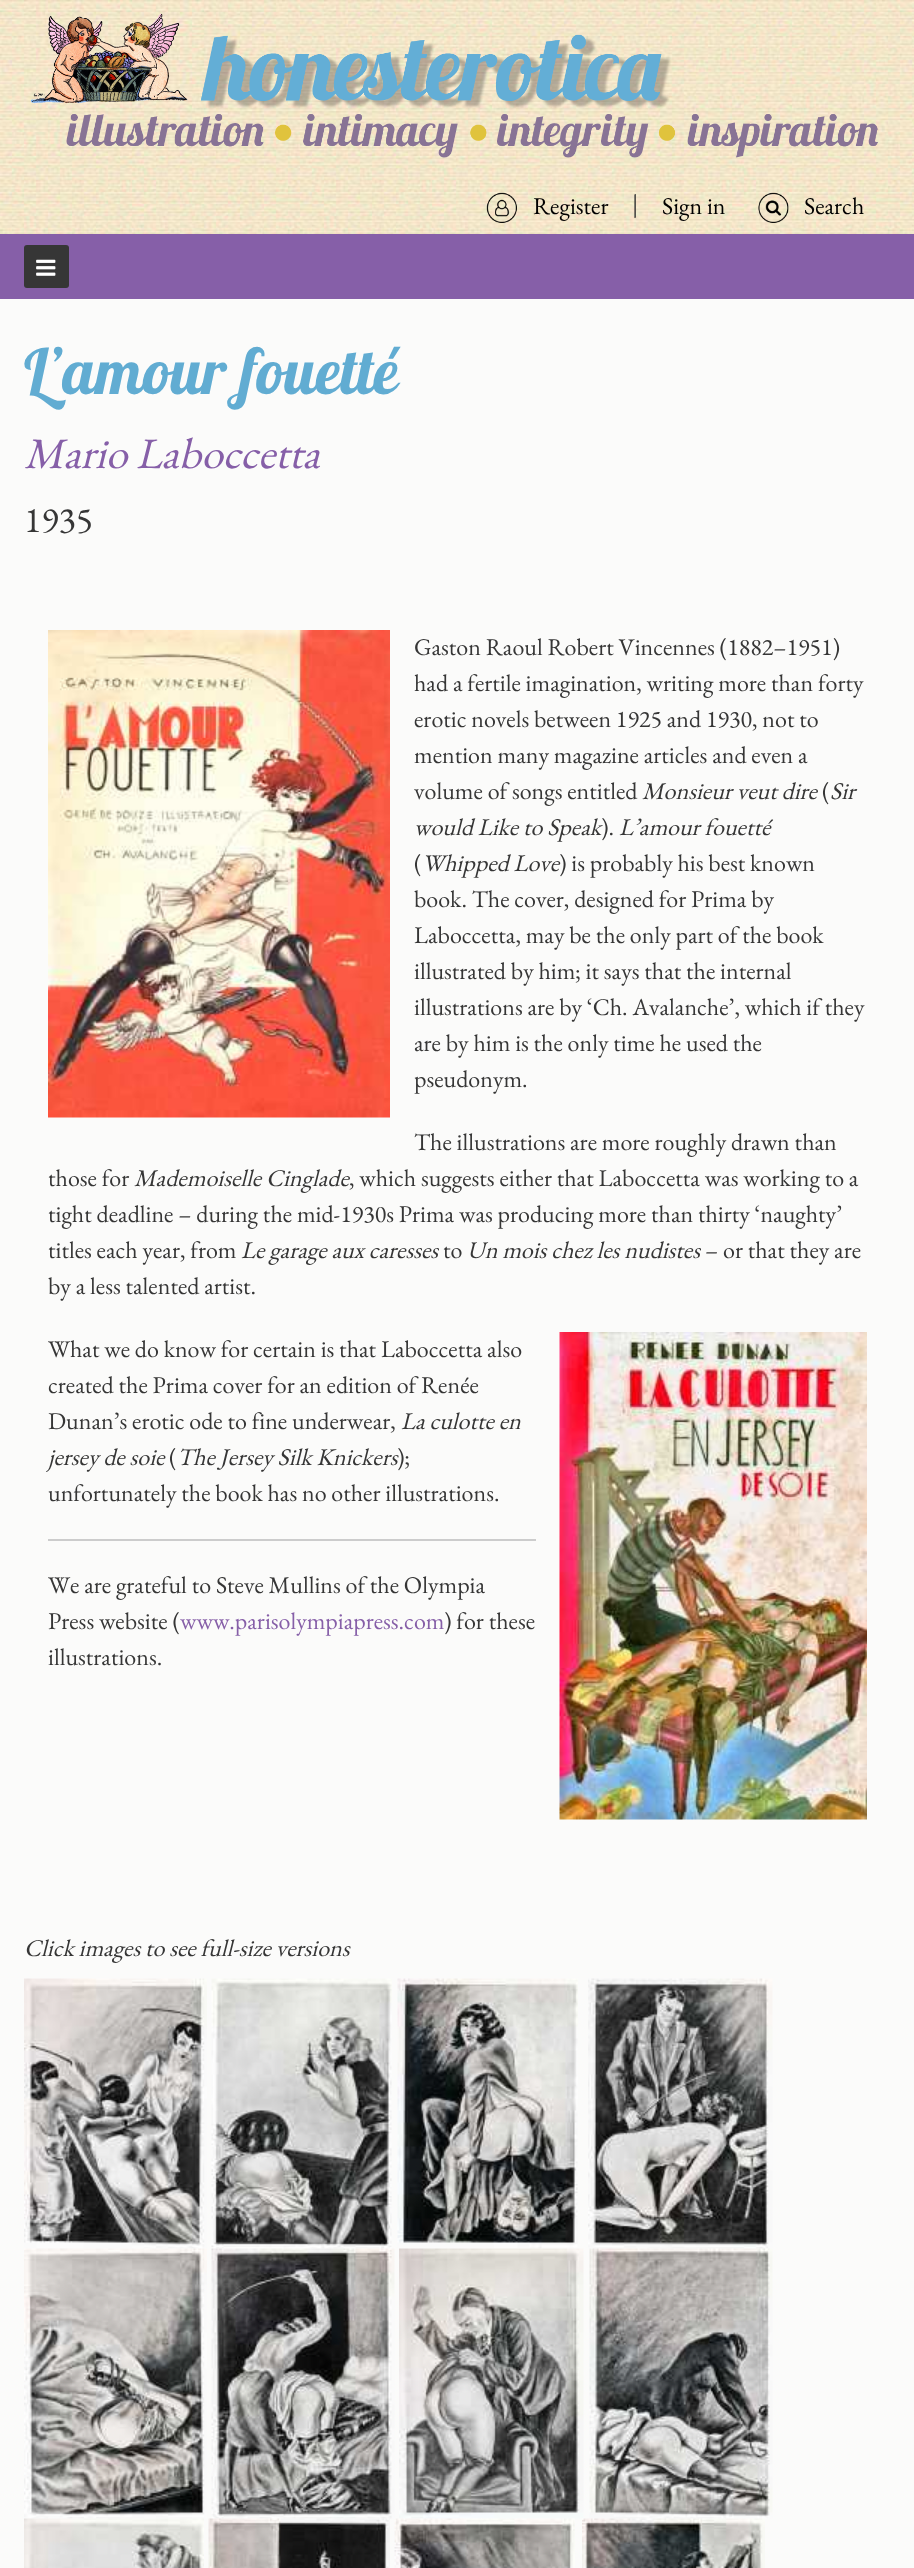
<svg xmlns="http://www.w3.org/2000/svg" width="914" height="2568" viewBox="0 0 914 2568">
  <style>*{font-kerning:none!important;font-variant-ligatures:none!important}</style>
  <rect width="100%" height="100%" fill="#fbfbfa"/>
  <image x="0" y="0" width="914" height="234" href="img1.png"/>
  <image x="30" y="13" width="848" height="145" href="img2.png"/>
  <image x="486" y="192" width="31" height="31" href="img3.png"/>
  <text x="533" y="214" font-family="EB Garamond" font-size="24" fill="#000000">Register</text>
  <text x="632" y="211" font-family="EB Garamond" font-size="24" fill="#363636">|</text>
  <text x="662" y="214" font-family="EB Garamond" font-size="24" fill="#000000">Sign in</text>
  <image x="758" y="192" width="31" height="31" href="img4.png"/>
  <text x="804" y="214" font-family="EB Garamond" font-size="24" fill="#000000">Search</text>
  <rect x="0" y="234" width="914" height="65" fill="#865fa8"/>
  <rect x="24" y="245" width="45" height="43" rx="3" fill="#363636"/>
  <image x="36" y="259" width="20" height="17" href="img5.png"/>
  <text x="24" y="394" font-family="Lobster" font-size="63" fill="#61acd2">L’amour fouetté</text>
  <text x="24" y="468" font-family="EB Garamond" font-size="43.5" font-style="italic" fill="#865fa8">Mario Laboccetta</text>
  <text x="24" y="532" font-family="EB Garamond" font-size="36" fill="#363636">1935</text>
  <image x="48" y="630" width="342" height="488" href="img6.png"/>
  <text x="414" y="655" font-family="EB Garamond" font-size="24" fill="#363636">Gaston Raoul Robert Vincennes (1882–1951)</text>
  <text x="414" y="691" font-family="EB Garamond" font-size="24" fill="#363636">had a fertile imagination, writing more than forty</text>
  <text x="414" y="727" font-family="EB Garamond" font-size="24" fill="#363636">erotic novels between 1925 and 1930, not to</text>
  <text x="414" y="763" font-family="EB Garamond" font-size="24" fill="#363636">mention many magazine articles and even a</text>
  <text x="414" y="799" font-family="EB Garamond" font-size="24" fill="#363636">volume of songs entitled</text>
  <text x="642" y="799" font-family="EB Garamond" font-size="24" font-style="italic" fill="#363636">Monsieur veut dire</text>
  <text x="822" y="799" font-family="EB Garamond" font-size="24" fill="#363636">(</text>
  <text x="830" y="799" font-family="EB Garamond" font-size="24" font-style="italic" fill="#363636">Sir</text>
  <text x="414" y="835" font-family="EB Garamond" font-size="24" font-style="italic" fill="#363636">would Like to Speak</text>
  <text x="601" y="835" font-family="EB Garamond" font-size="24" fill="#363636">).</text>
  <text x="619" y="835" font-family="EB Garamond" font-size="24" font-style="italic" fill="#363636">L’amour fouetté</text>
  <text x="414" y="871" font-family="EB Garamond" font-size="24" fill="#363636">(</text>
  <text x="422" y="871" font-family="EB Garamond" font-size="24" font-style="italic" fill="#363636">Whipped Love</text>
  <text x="559" y="871" font-family="EB Garamond" font-size="24" fill="#363636">) is probably his best known</text>
  <text x="414" y="907" font-family="EB Garamond" font-size="24" fill="#363636">book. The cover, designed for Prima by</text>
  <text x="414" y="943" font-family="EB Garamond" font-size="24" fill="#363636">Laboccetta, may be the only part of the book</text>
  <text x="414" y="979" font-family="EB Garamond" font-size="24" fill="#363636">illustrated by him; it says that the internal</text>
  <text x="414" y="1015" font-family="EB Garamond" font-size="24" fill="#363636">illustrations are by ‘Ch. Avalanche’, which if they</text>
  <text x="414" y="1051" font-family="EB Garamond" font-size="24" fill="#363636">are by him is the only time he used the</text>
  <text x="414" y="1087" font-family="EB Garamond" font-size="24" fill="#363636">pseudonym.</text>
  <text x="414" y="1150" font-family="EB Garamond" font-size="24" fill="#363636">The illustrations are more roughly drawn than</text>
  <text x="48" y="1186" font-family="EB Garamond" font-size="24" fill="#363636">those for</text>
  <text x="134" y="1186" font-family="EB Garamond" font-size="24" font-style="italic" fill="#363636">Mademoiselle Cinglade</text>
  <text x="349" y="1186" font-family="EB Garamond" font-size="24" fill="#363636">, which suggests either that Laboccetta was working to a</text>
  <text x="48" y="1222" font-family="EB Garamond" font-size="24" fill="#363636">tight deadline – during the mid-1930s Prima was producing more than thirty ‘naughty’</text>
  <text x="48" y="1258" font-family="EB Garamond" font-size="24" fill="#363636">titles each year, from</text>
  <text x="241" y="1258" font-family="EB Garamond" font-size="24" font-style="italic" fill="#363636">Le garage aux caresses</text>
  <text x="443" y="1258" font-family="EB Garamond" font-size="24" fill="#363636">to</text>
  <text x="467" y="1258" font-family="EB Garamond" font-size="24" font-style="italic" fill="#363636">Un mois chez les nudistes</text>
  <text x="705" y="1258" font-family="EB Garamond" font-size="24" fill="#363636">– or that they are</text>
  <text x="48" y="1294" font-family="EB Garamond" font-size="24" fill="#363636">by a less talented artist.</text>
  <text x="48" y="1357" font-family="EB Garamond" font-size="24" fill="#363636">What we do know for certain is that Laboccetta also</text>
  <image x="559" y="1332" width="308" height="488" href="img7.png"/>
  <text x="48" y="1393" font-family="EB Garamond" font-size="24" fill="#363636">created the Prima cover for an edition of Renée</text>
  <text x="48" y="1429" font-family="EB Garamond" font-size="24" fill="#363636">Dunan’s erotic ode to fine underwear,</text>
  <text x="401" y="1429" font-family="EB Garamond" font-size="24" font-style="italic" fill="#363636">La culotte en</text>
  <text x="48" y="1465" font-family="EB Garamond" font-size="24" font-style="italic" fill="#363636">jersey de soie</text>
  <text x="169" y="1465" font-family="EB Garamond" font-size="24" fill="#363636">(</text>
  <text x="177" y="1465" font-family="EB Garamond" font-size="24" font-style="italic" fill="#363636">The Jersey Silk Knickers</text>
  <text x="397" y="1465" font-family="EB Garamond" font-size="24" fill="#363636">);</text>
  <text x="48" y="1501" font-family="EB Garamond" font-size="24" fill="#363636">unfortunately the book has no other illustrations.</text>
  <rect x="48" y="1539" width="488" height="2" fill="#cccccc"/>
  <text x="48" y="1593" font-family="EB Garamond" font-size="24" fill="#363636">We are grateful to Steve Mullins of the Olympia</text>
  <text x="48" y="1629" font-family="EB Garamond" font-size="24" fill="#363636">Press website (</text>
  <text x="180" y="1629" font-family="EB Garamond" font-size="24" fill="#865fa8">www.parisolympiapress.com</text>
  <text x="444" y="1629" font-family="EB Garamond" font-size="24" fill="#363636">) for these</text>
  <text x="48" y="1665" font-family="EB Garamond" font-size="24" fill="#363636">illustrations.</text>
  <text x="24" y="1956" font-family="EB Garamond" font-size="24" font-style="italic" fill="#363636">Click images to see full-size versions</text>
  <image x="24" y="1978" width="183" height="271" href="img8.png"/>
  <image x="211" y="1978" width="181" height="271" href="img9.png"/>
  <image x="397" y="1978" width="181" height="271" href="img10.png"/>
  <image x="588" y="1978" width="185" height="271" href="img11.png"/>
  <image x="24" y="2248" width="183" height="271" href="img12.png"/>
  <image x="211" y="2248" width="184" height="271" href="img13.png"/>
  <image x="399" y="2248" width="185" height="271" href="img14.png"/>
  <image x="589" y="2248" width="184" height="271" href="img15.png"/>
  <image x="24" y="2518" width="180" height="50" href="img16.png"/>
  <image x="208" y="2518" width="182" height="50" href="img17.png"/>
  <image x="394" y="2518" width="181" height="50" href="img18.png"/>
  <image x="582" y="2518" width="183" height="50" href="img19.png"/>
</svg>
